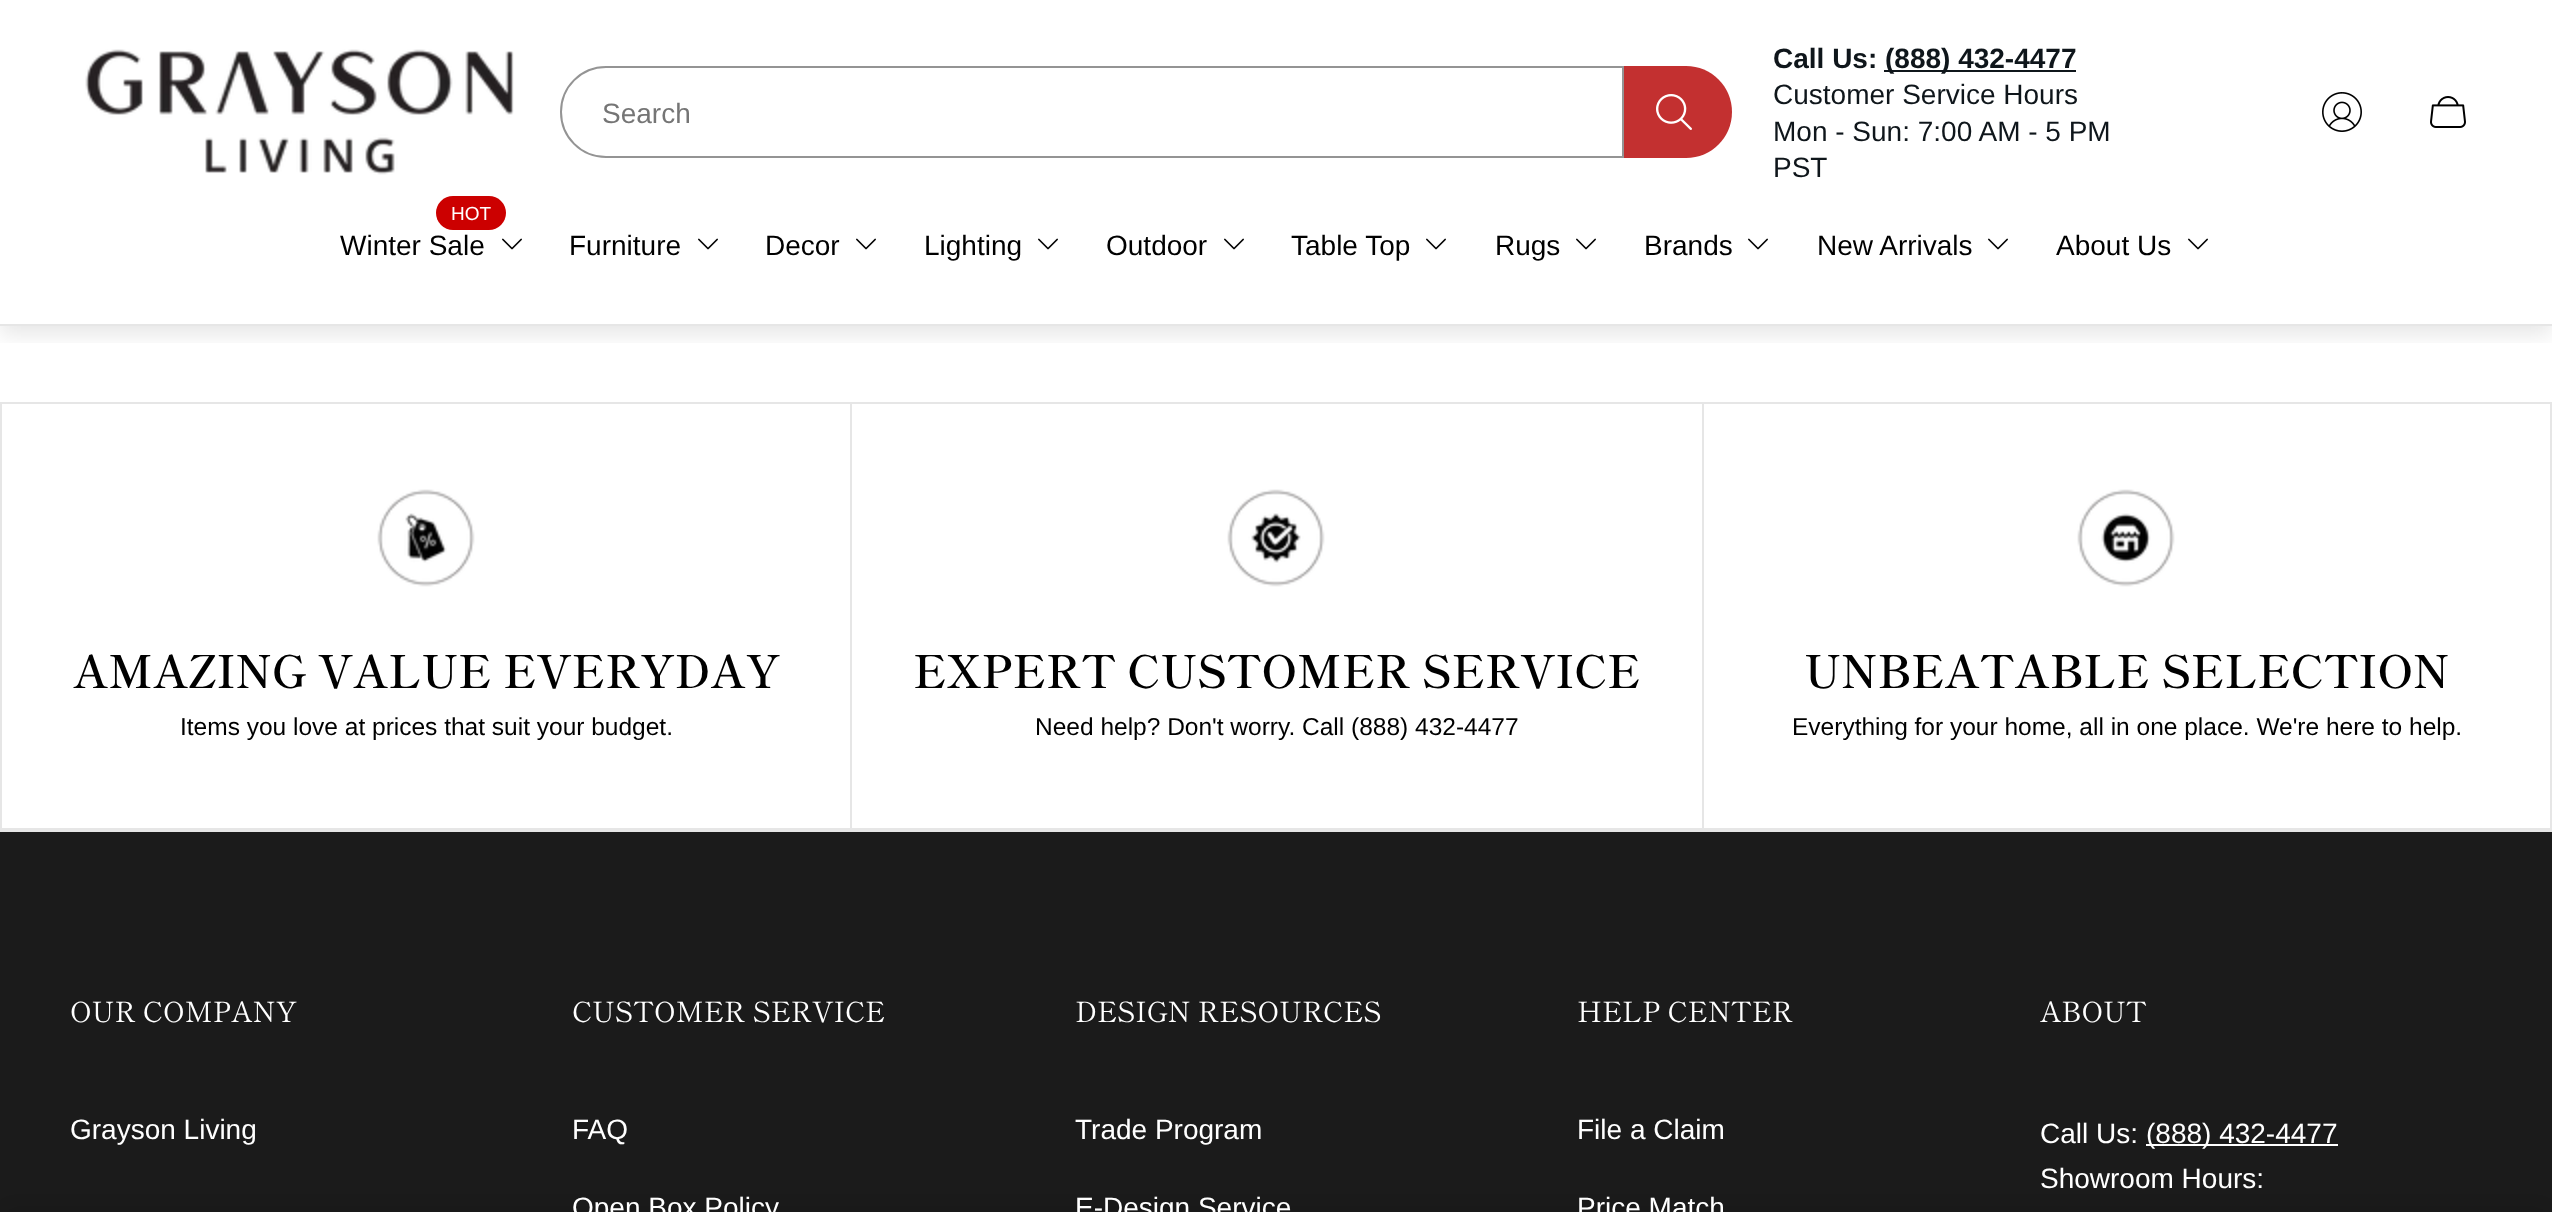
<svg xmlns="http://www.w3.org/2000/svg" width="2552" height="1212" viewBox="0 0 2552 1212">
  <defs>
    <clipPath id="clip1"><rect x="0" y="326" width="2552" height="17"/></clipPath>
    <filter id="blur1" x="-50%" y="-200%" width="200%" height="500%"><feGaussianBlur stdDeviation="11"/></filter>
  </defs>
  <rect width="100%" height="100%" fill="#ffffff"/>
  <g clip-path="url(#clip1)">
    <rect x="0" y="8" width="2552" height="326" fill="#000000" fill-opacity="0.1" filter="url(#blur1)"/>
  </g>
  <rect x="0" y="324" width="2552" height="2" fill="#e6e6e6"/>
  <image x="85" y="49" width="429" height="126" href="img1.png"/>
  <path d="M606 67H1623V157H606C581 157 561 137 561 112C561 87 581 67 606 67Z" fill="none" stroke="#949494" stroke-width="2"/>
  <text x="602" y="123" font-family="Liberation Sans" font-size="28" fill="#757575">Search</text>
  <path d="M1624 66H1686C1711.5 66 1732 86.5 1732 112C1732 137.5 1711.5 158 1686 158H1624Z" fill="#c33030"/>
  <image x="1656" y="94" width="36" height="36" href="img2.png"/>
  <text x="1773" y="68" font-family="Liberation Sans" font-size="28" font-weight="bold" fill="#0f161b">Call Us:</text>
  <rect x="1884" y="70" width="192" height="2" fill="#0f161b"/>
  <text x="1885" y="68" font-family="Liberation Sans" font-size="28" font-weight="bold" fill="#0f161b">(888) 432-4477</text>
  <text x="1773" y="104" font-family="Liberation Sans" font-size="28" fill="#0f161b">Customer Service Hours</text>
  <text x="1773" y="141" font-family="Liberation Sans" font-size="28" fill="#0f161b">Mon - Sun: 7:00 AM - 5 PM</text>
  <text x="1773" y="177" font-family="Liberation Sans" font-size="28" fill="#0f161b">PST</text>
  <image x="2322" y="92" width="40" height="40" href="img3.png"/>
  <image x="2430" y="96" width="36" height="32" href="img4.png"/>
  <rect x="436" y="196" width="70" height="34" rx="17" fill="#cc0000"/>
  <text x="451" y="220" font-family="Liberation Sans" font-size="19" fill="#ffffff">HOT</text>
  <text x="340" y="255" font-family="Liberation Sans" font-size="28" fill="#000000">Winter Sale</text>
  <image x="502" y="238" width="20" height="12" href="img5.png"/>
  <text x="569" y="255" font-family="Liberation Sans" font-size="28" fill="#000000">Furniture</text>
  <image x="698" y="238" width="20" height="12" href="img5.png"/>
  <text x="765" y="255" font-family="Liberation Sans" font-size="28" fill="#000000">Decor</text>
  <image x="856" y="238" width="20" height="12" href="img5.png"/>
  <text x="924" y="255" font-family="Liberation Sans" font-size="28" fill="#000000">Lighting</text>
  <image x="1038" y="238" width="20" height="12" href="img5.png"/>
  <text x="1106" y="255" font-family="Liberation Sans" font-size="28" fill="#000000">Outdoor</text>
  <image x="1224" y="238" width="20" height="12" href="img5.png"/>
  <text x="1291" y="255" font-family="Liberation Sans" font-size="28" fill="#000000">Table Top</text>
  <image x="1426" y="238" width="20" height="12" href="img5.png"/>
  <text x="1495" y="255" font-family="Liberation Sans" font-size="28" fill="#000000">Rugs</text>
  <image x="1576" y="238" width="20" height="12" href="img5.png"/>
  <text x="1644" y="255" font-family="Liberation Sans" font-size="28" fill="#000000">Brands</text>
  <image x="1748" y="238" width="20" height="12" href="img5.png"/>
  <text x="1817" y="255" font-family="Liberation Sans" font-size="28" fill="#000000">New Arrivals</text>
  <image x="1988" y="238" width="20" height="12" href="img5.png"/>
  <text x="2056" y="255" font-family="Liberation Sans" font-size="28" fill="#000000">About Us</text>
  <image x="2188" y="238" width="20" height="12" href="img5.png"/>
  <rect x="0" y="402" width="1702" height="2" fill="#e6e6e6"/>
  <rect x="0" y="828" width="1702" height="2" fill="#e6e6e6"/>
  <rect x="0" y="402" width="2" height="428" fill="#e6e6e6"/>
  <image x="377" y="489" width="98" height="98" href="img6.png"/>
  <text x="73" y="688" font-family="Shippori Mincho" font-size="45" font-weight="600" fill="#000000">AMAZING VALUE EVERYDAY</text>
  <text x="180" y="735" font-family="Liberation Sans" font-size="24.5" fill="#000000">Items you love at prices that suit your budget.</text>
  <rect x="850" y="402" width="2" height="428" fill="#e6e6e6"/>
  <image x="1227" y="489" width="98" height="98" href="img7.png"/>
  <text x="913" y="688" font-family="Shippori Mincho" font-size="45" font-weight="600" fill="#000000">EXPERT CUSTOMER SERVICE</text>
  <text x="1035" y="735" font-family="Liberation Sans" font-size="24.5" fill="#000000">Need help? Don't worry. Call (888) 432-4477</text>
  <rect x="1703" y="403" width="848" height="426" fill="none" stroke="#e6e6e6" stroke-width="2"/>
  <image x="2077" y="489" width="98" height="98" href="img8.png"/>
  <text x="1804" y="688" font-family="Shippori Mincho" font-size="45" font-weight="600" fill="#000000">UNBEATABLE SELECTION</text>
  <text x="1792" y="735" font-family="Liberation Sans" font-size="24.5" fill="#000000">Everything for your home, all in one place. We're here to help.</text>
  <rect x="0" y="832" width="2552" height="380" fill="#1b1b1b"/>
  <rect x="0" y="1204" width="2552" height="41" fill="#000000" fill-opacity="0.1" filter="url(#blur1)"/>
  <rect x="0" y="830" width="2552" height="2" fill="#e6e6e6"/>
  <text x="70" y="1022" font-family="Shippori Mincho" font-size="28" fill="#ffffff">OUR COMPANY</text>
  <text x="70" y="1139" font-family="Liberation Sans" font-size="28" fill="#ffffff">Grayson Living</text>
  <text x="572" y="1022" font-family="Shippori Mincho" font-size="28" fill="#ffffff">CUSTOMER SERVICE</text>
  <text x="572" y="1139" font-family="Liberation Sans" font-size="28" fill="#ffffff">FAQ</text>
  <text x="572" y="1217" font-family="Liberation Sans" font-size="28" fill="#ffffff">Open Box Policy</text>
  <text x="1075" y="1022" font-family="Shippori Mincho" font-size="28" fill="#ffffff">DESIGN RESOURCES</text>
  <text x="1075" y="1139" font-family="Liberation Sans" font-size="28" fill="#ffffff">Trade Program</text>
  <text x="1075" y="1217" font-family="Liberation Sans" font-size="28" fill="#ffffff">E-Design Service</text>
  <text x="1577" y="1022" font-family="Shippori Mincho" font-size="28" fill="#ffffff">HELP CENTER</text>
  <text x="1577" y="1139" font-family="Liberation Sans" font-size="28" fill="#ffffff">File a Claim</text>
  <text x="1577" y="1217" font-family="Liberation Sans" font-size="28" fill="#ffffff">Price Match</text>
  <text x="2040" y="1022" font-family="Shippori Mincho" font-size="28" fill="#ffffff">ABOUT</text>
  <text x="2040" y="1143" font-family="Liberation Sans" font-size="28" fill="#ffffff">Call Us:</text>
  <rect x="2146" y="1144" width="192" height="2" fill="#ffffff"/>
  <text x="2146" y="1143" font-family="Liberation Sans" font-size="28" fill="#ffffff">(888) 432-4477</text>
  <text x="2040" y="1188" font-family="Liberation Sans" font-size="28" fill="#ffffff">Showroom Hours:</text>
</svg>
